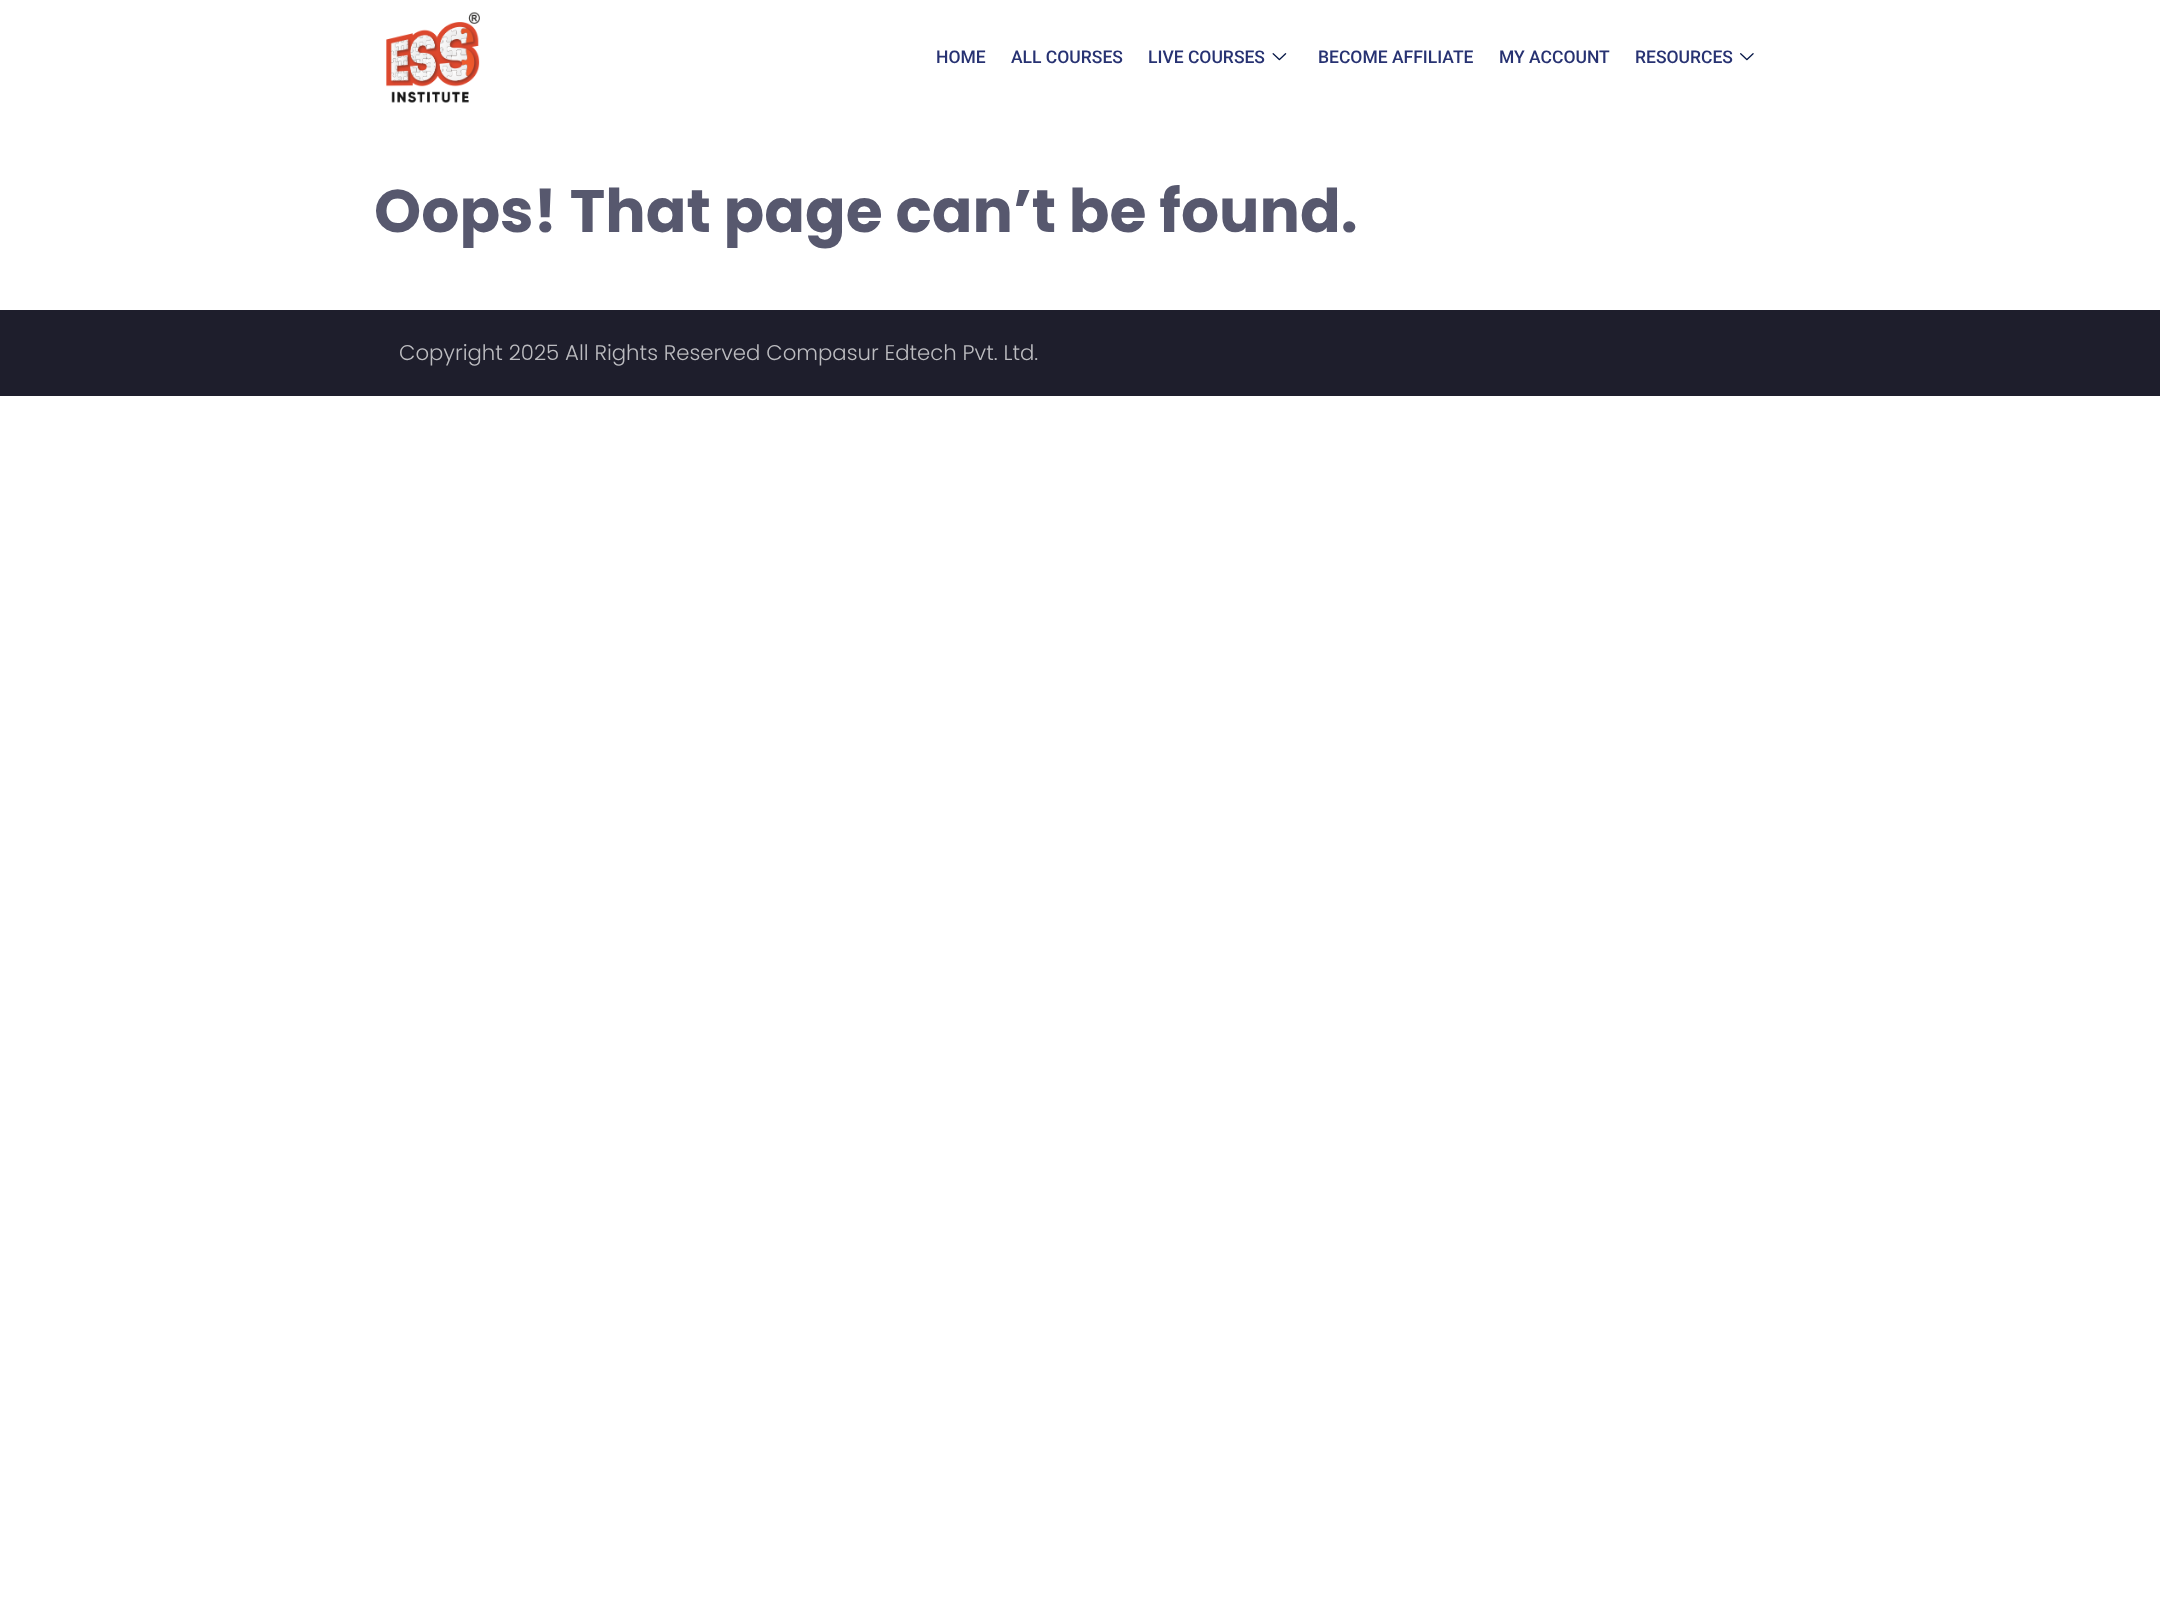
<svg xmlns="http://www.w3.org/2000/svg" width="2160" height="1607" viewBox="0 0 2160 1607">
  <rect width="100%" height="100%" fill="#ffffff"/>
  <image x="386" y="12" width="94" height="91" href="img1.png"/>
  <text x="936" y="63" font-family="Roboto" font-size="17.5" font-weight="500" fill="#273272">HOME</text>
  <text x="1011" y="63" font-family="Roboto" font-size="17.5" font-weight="500" fill="#273272">ALL COURSES</text>
  <text x="1148" y="63" font-family="Roboto" font-size="17.5" font-weight="500" fill="#273272">LIVE COURSES</text>
  <image x="1272" y="53" width="15" height="8" href="img2.png"/>
  <text x="1318" y="63" font-family="Roboto" font-size="17.5" font-weight="500" fill="#273272">BECOME AFFILIATE</text>
  <text x="1499" y="63" font-family="Roboto" font-size="17.5" font-weight="500" fill="#273272">MY ACCOUNT</text>
  <text x="1635" y="63" font-family="Roboto" font-size="17.5" font-weight="500" fill="#273272">RESOURCES</text>
  <image x="1740" y="53" width="14" height="8" href="img3.png"/>
  <text x="374" y="232" font-family="Poppins" font-size="60" font-weight="bold" fill="#57586e">Oops! That page can’t be found.</text>
  <rect x="0" y="310" width="2160" height="86" fill="#1e1e2c"/>
  <text x="399" y="360" font-family="Poppins" font-size="21.25" font-weight="300" fill="#bcbcc0">Copyright 2025 All Rights Reserved Compasur Edtech Pvt. Ltd.</text>
</svg>
